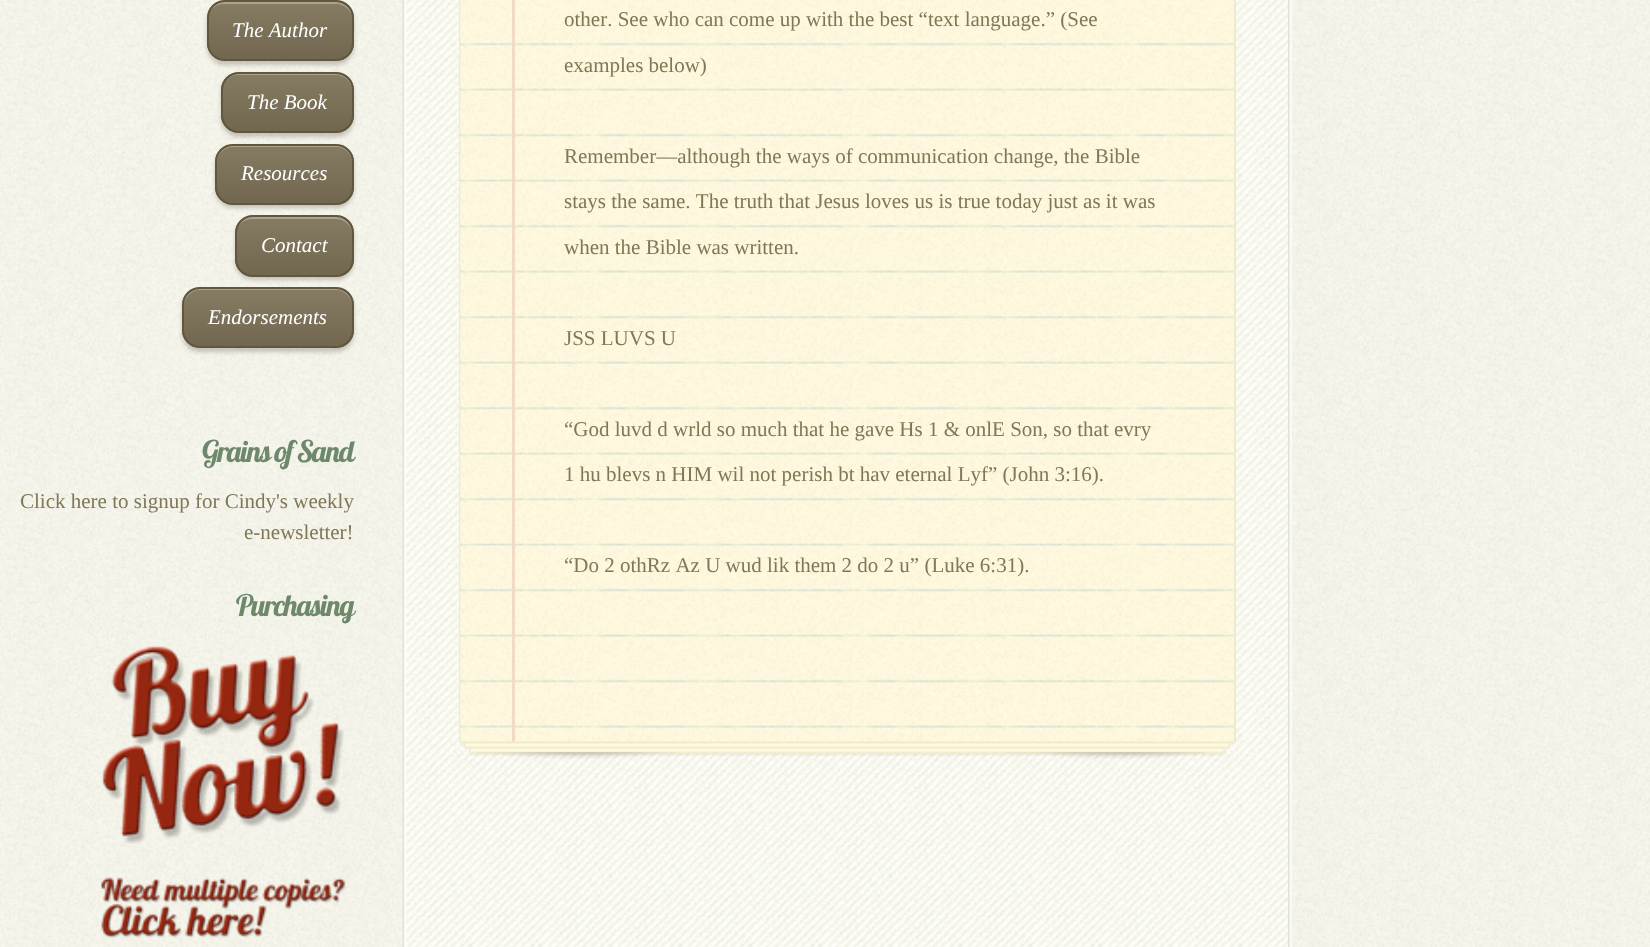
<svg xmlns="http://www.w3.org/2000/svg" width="1650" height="947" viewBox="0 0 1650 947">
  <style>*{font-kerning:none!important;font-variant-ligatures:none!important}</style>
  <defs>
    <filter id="blur1" x="-50%" y="-200%" width="200%" height="500%"><feGaussianBlur stdDeviation="2"/></filter>
    <clipPath id="clip1"><rect x="207" y="0" width="147" height="61" rx="18"/></clipPath>
    <linearGradient id="g1" gradientUnits="userSpaceOnUse" x1="280" y1="1.7" x2="280" y2="60"><stop offset="0" stop-color="#867c63"/><stop offset="1" stop-color="#716750"/></linearGradient>
    <clipPath id="clip2"><rect x="221" y="72" width="133" height="61" rx="18"/></clipPath>
    <linearGradient id="g2" gradientUnits="userSpaceOnUse" x1="287" y1="74" x2="287" y2="131"><stop offset="0" stop-color="#867c63"/><stop offset="1" stop-color="#716750"/></linearGradient>
    <clipPath id="clip3"><rect x="215" y="144" width="139" height="61" rx="18"/></clipPath>
    <linearGradient id="g3" gradientUnits="userSpaceOnUse" x1="284" y1="145" x2="284" y2="203"><stop offset="0" stop-color="#867c63"/><stop offset="1" stop-color="#716750"/></linearGradient>
    <clipPath id="clip4"><rect x="235" y="215" width="119" height="62" rx="18"/></clipPath>
    <linearGradient id="g4" gradientUnits="userSpaceOnUse" x1="294" y1="217" x2="294" y2="275"><stop offset="0" stop-color="#867c63"/><stop offset="1" stop-color="#716750"/></linearGradient>
    <clipPath id="clip5"><rect x="182" y="287" width="172" height="61" rx="18"/></clipPath>
    <linearGradient id="g5" gradientUnits="userSpaceOnUse" x1="268" y1="289" x2="268" y2="347"><stop offset="0" stop-color="#867c63"/><stop offset="1" stop-color="#716750"/></linearGradient>
  </defs>
  <rect width="100%" height="100%" fill="#ffffff"/>
  <image x="0" y="0" width="1650" height="947" href="img1.png"/>
  <image x="406" y="0" width="882" height="947" href="img2.png"/>
  <rect x="207" y="4" width="147" height="61" rx="18" fill="#000000" fill-opacity="0.2" filter="url(#blur1)"/>
  <g clip-path="url(#clip1)">
    <rect x="207" y="2" width="147" height="58" fill="url(#g1)"/>
  </g>
  <path d="M224 4H336C345 4 352 11 352 19C352-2 331 2 317 2H243C229 2 208-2 208 19C208 11 215 4 224 4Z" fill="#ffffff" fill-opacity="0.3"/>
  <rect x="208" y="1" width="145" height="59" rx="17" fill="none" stroke="#62563b" stroke-width="2"/>
  <text x="232" y="37" font-family="Liberation Serif" font-size="21" font-style="italic" fill="#ffffff">The Author</text>
  <rect x="221" y="75" width="133" height="62" rx="18" fill="#000000" fill-opacity="0.2" filter="url(#blur1)"/>
  <g clip-path="url(#clip2)">
    <rect x="221" y="74" width="133" height="57" fill="url(#g2)"/>
  </g>
  <path d="M238 75H336C345 75 352 82 352 91C352 71 334 74 320 74H254C240 74 222 71 222 91C222 82 229 75 238 75Z" fill="#ffffff" fill-opacity="0.3"/>
  <rect x="222" y="73" width="131" height="59" rx="17" fill="none" stroke="#62563b" stroke-width="2"/>
  <text x="247" y="109" font-family="Liberation Serif" font-size="21" font-style="italic" fill="#ffffff">The Book</text>
  <rect x="215" y="147" width="139" height="61" rx="18" fill="#000000" fill-opacity="0.2" filter="url(#blur1)"/>
  <g clip-path="url(#clip3)">
    <rect x="215" y="145" width="139" height="58" fill="url(#g3)"/>
  </g>
  <path d="M233 147H336C345 147 352 154 352 163C352 142 334 145 319 145H250C235 145 217 142 217 163C217 154 224 147 233 147Z" fill="#ffffff" fill-opacity="0.3"/>
  <rect x="216" y="145" width="137" height="59" rx="17" fill="none" stroke="#62563b" stroke-width="2"/>
  <text x="241" y="180" font-family="Liberation Serif" font-size="21" font-style="italic" fill="#ffffff">Resources</text>
  <rect x="235" y="219" width="119" height="61" rx="18" fill="#000000" fill-opacity="0.2" filter="url(#blur1)"/>
  <g clip-path="url(#clip4)">
    <rect x="235" y="217" width="119" height="58" fill="url(#g4)"/>
  </g>
  <path d="M252 219H336C345 219 352 226 352 234V233C352 224 345 217 336 217H252C243 217 236 224 236 233V234C236 226 243 219 252 219Z" fill="#ffffff" fill-opacity="0.3"/>
  <rect x="236" y="216" width="117" height="60" rx="17" fill="none" stroke="#62563b" stroke-width="2"/>
  <text x="261" y="252" font-family="Liberation Serif" font-size="21" font-style="italic" fill="#ffffff">Contact</text>
  <rect x="182" y="291" width="172" height="61" rx="18" fill="#000000" fill-opacity="0.2" filter="url(#blur1)"/>
  <g clip-path="url(#clip5)">
    <rect x="182" y="289" width="172" height="58" fill="url(#g5)"/>
  </g>
  <path d="M200 290H336C345 290 352 298 352 306C352 284 328 289 313 289H223C208 289 184 284 184 306C184 298 191 290 200 290Z" fill="#ffffff" fill-opacity="0.3"/>
  <rect x="183" y="288" width="170" height="59" rx="17" fill="none" stroke="#62563b" stroke-width="2"/>
  <text x="208" y="324" font-family="Liberation Serif" font-size="21" font-style="italic" fill="#ffffff">Endorsements</text>
  <text x="202" y="462" font-family="Lobster" font-size="29.75" letter-spacing="-1.75" fill="#6e886c">Grains of Sand</text>
  <text x="20" y="508" font-family="Liberation Serif" font-size="21" fill="#817757">Click here to signup for Cindy's weekly</text>
  <text x="244" y="539" font-family="Liberation Serif" font-size="21" fill="#817757">e-newsletter!</text>
  <text x="236" y="616" font-family="Lobster" font-size="29.75" letter-spacing="-1.75" fill="#6e886c">Purchasing</text>
  <image x="101" y="646" width="243" height="198" href="img3.png"/>
  <image x="101" y="877" width="245" height="61" href="img4.png"/>
  <image x="402" y="0" width="4" height="947" href="img5.png"/>
  <rect x="1234" y="0" width="2" height="742" fill="#f0eaca"/>
  <rect x="459" y="0" width="2" height="742" fill="#f0eaca"/>
  <image x="460" y="0" width="774" height="742" href="img6.png"/>
  <rect x="512" y="0" width="3" height="742" fill="#f3dac6"/>
  <text x="564" y="26" font-family="Liberation Serif" font-size="21" fill="#817757">other. See who can come up with the best “text language.” (See</text>
  <text x="564" y="72" font-family="Liberation Serif" font-size="21" fill="#817757">examples below)</text>
  <text x="564" y="163" font-family="Liberation Serif" font-size="21" fill="#817757">Remember—although the ways of communication change, the Bible</text>
  <text x="564" y="208" font-family="Liberation Serif" font-size="21" fill="#817757">stays the same. The truth that Jesus loves us is true today just as it was</text>
  <text x="564" y="254" font-family="Liberation Serif" font-size="21" fill="#817757">when the Bible was written.</text>
  <text x="564" y="345" font-family="Liberation Serif" font-size="21" fill="#817757">JSS LUVS U</text>
  <text x="564" y="436" font-family="Liberation Serif" font-size="21" fill="#817757">“God luvd d wrld so much that he gave Hs 1 &amp; onlE Son, so that evry</text>
  <text x="564" y="481" font-family="Liberation Serif" font-size="21" fill="#817757">1 hu blevs n HIM wil not perish bt hav eternal Lyf” (John 3:16).</text>
  <text x="564" y="572" font-family="Liberation Serif" font-size="21" fill="#817757">“Do 2 othRz Az U wud lik them 2 do 2 u” (Luke 6:31).</text>
  <image x="458" y="741" width="17" height="15" href="img7.png"/>
  <image x="1219" y="741" width="17" height="15" href="img8.png"/>
  <image x="474" y="741" width="746" height="15" href="img9.png"/>
  <image x="478" y="752" width="197" height="7" href="img10.png"/>
  <image x="1007" y="752" width="198" height="7" href="img11.png"/>
  <image x="1288" y="0" width="4" height="947" href="img12.png"/>
</svg>
